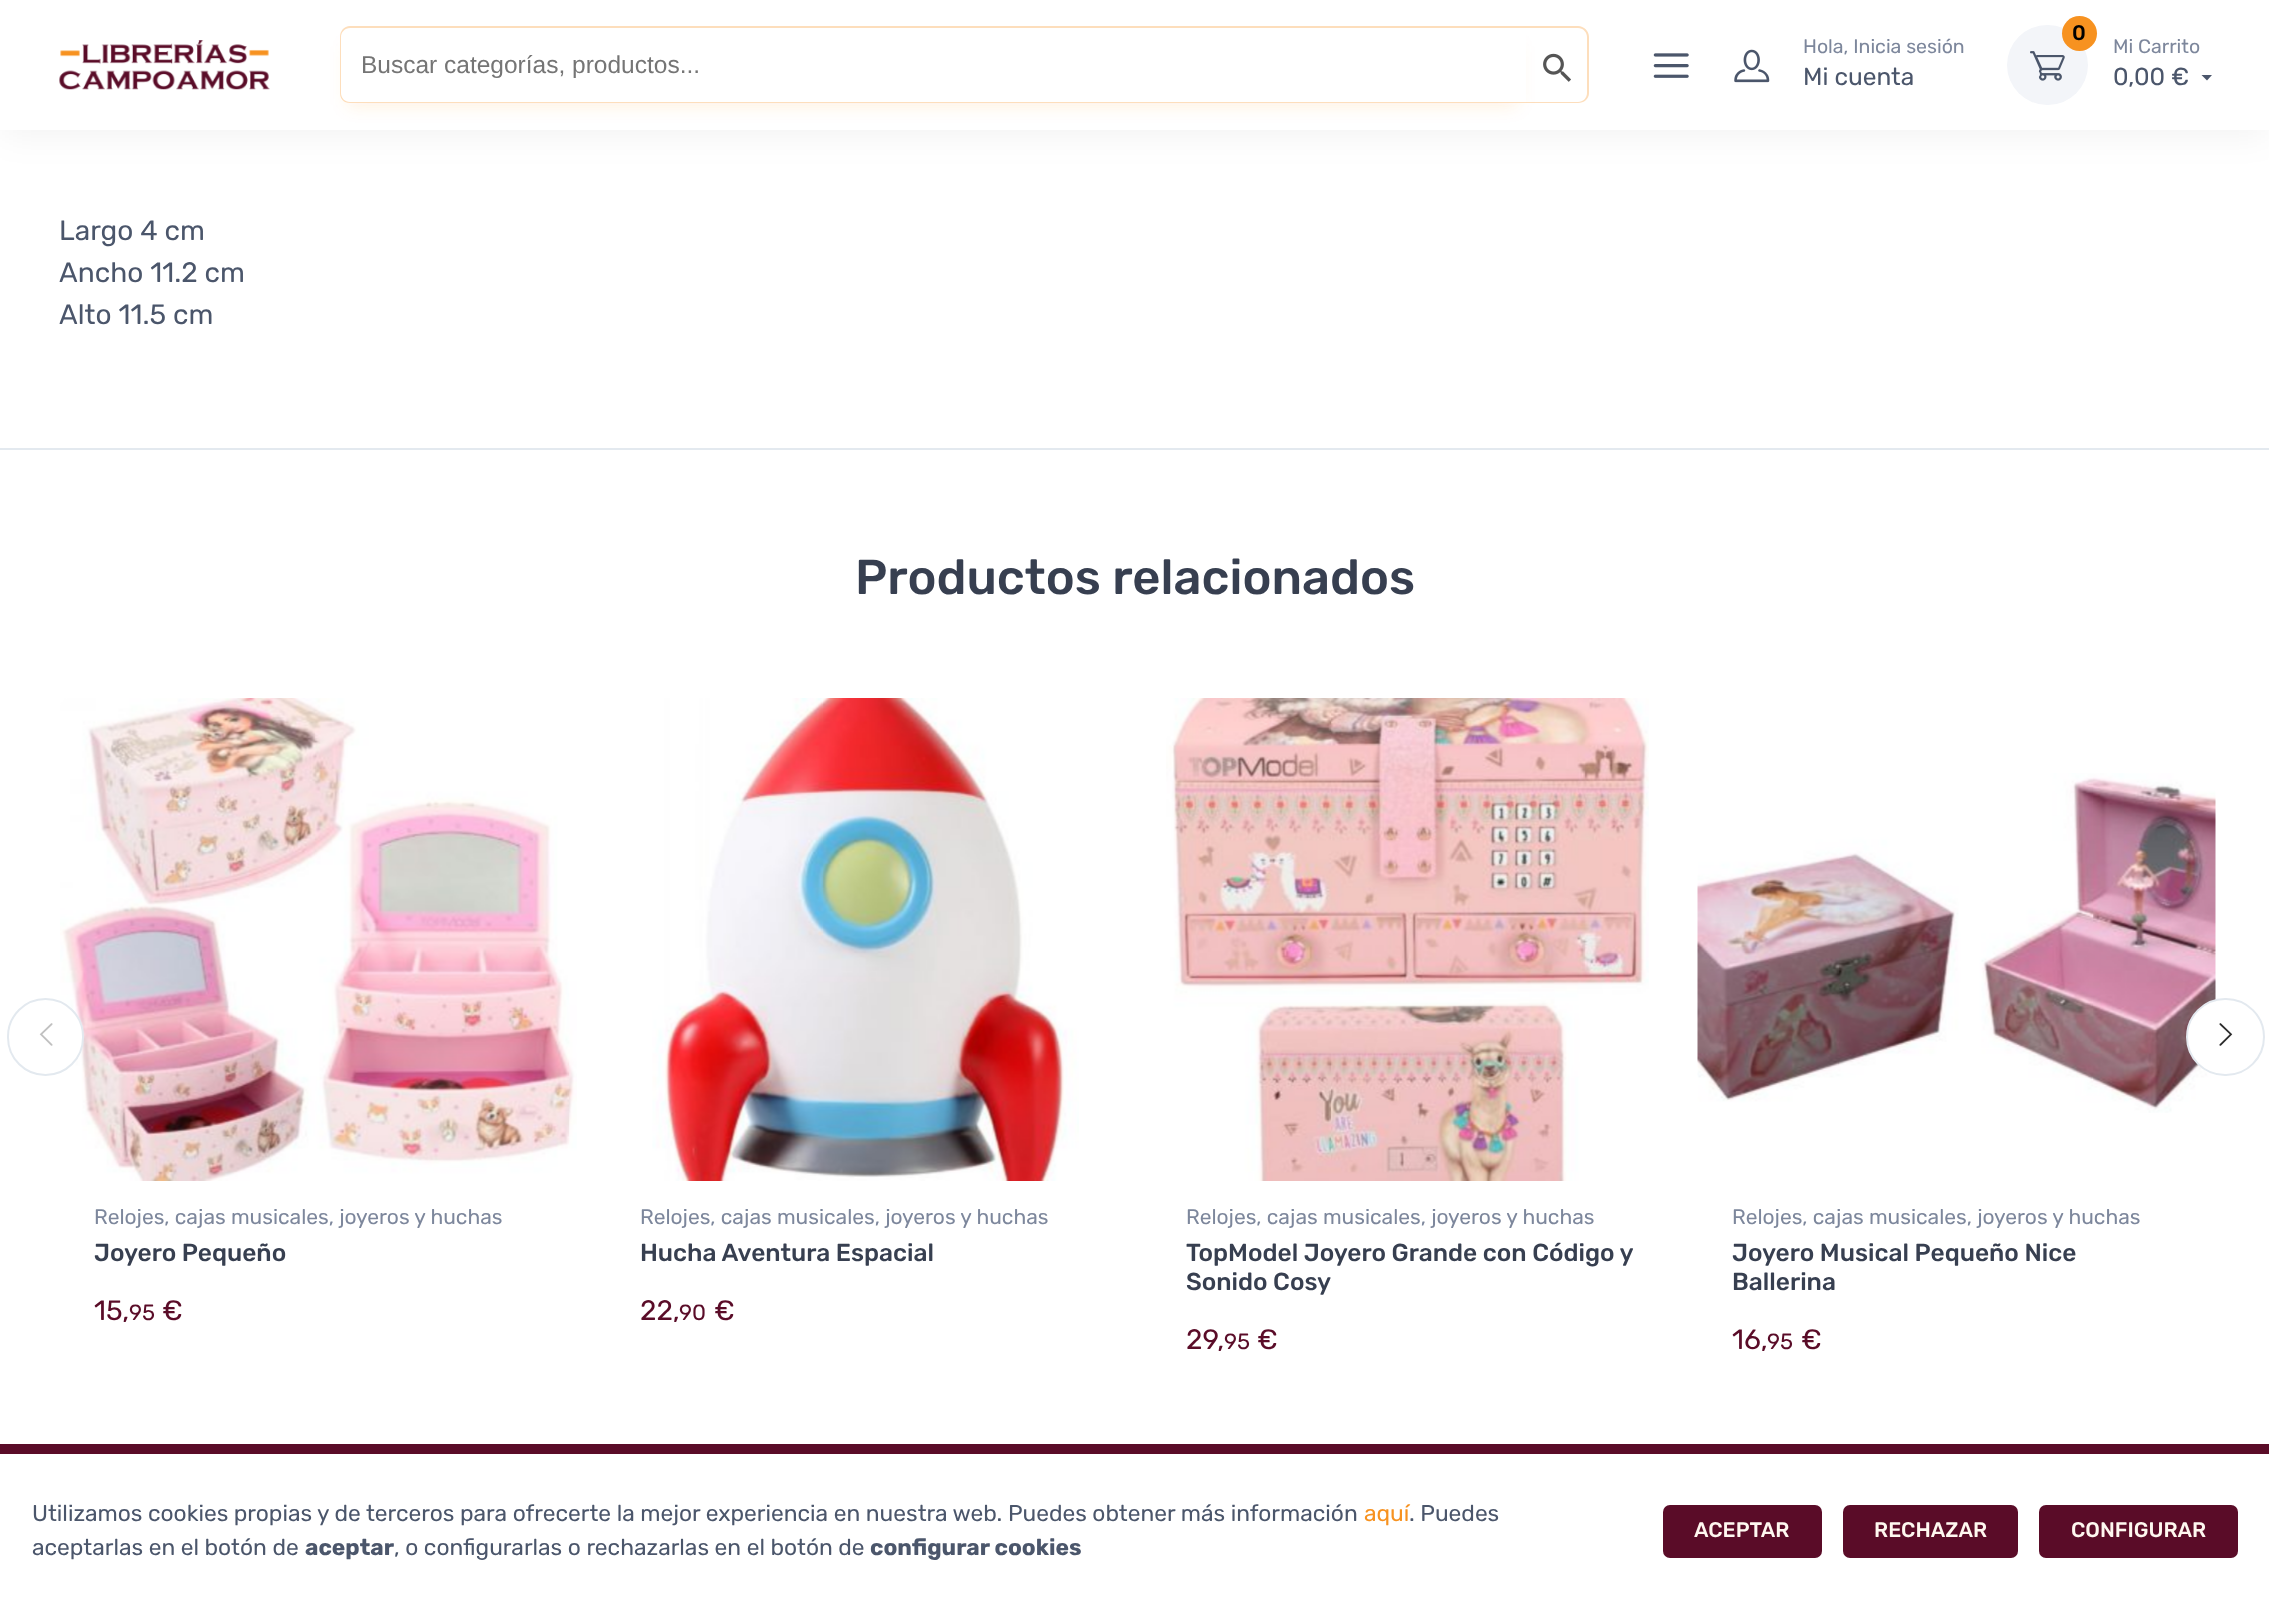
<svg xmlns="http://www.w3.org/2000/svg" width="2269" height="1606" viewBox="0 0 2269 1606">
  <defs>
    <filter id="blur1" x="-50%" y="-200%" width="200%" height="500%"><feGaussianBlur stdDeviation="17.5"/></filter>
    <clipPath id="clip1"><path d="M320 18H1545V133H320ZM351 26H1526V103H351C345 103 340 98 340 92V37C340 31 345 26 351 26Z" clip-rule="evenodd"/></clipPath>
    <filter id="blur2" x="-50%" y="-200%" width="200%" height="500%"><feGaussianBlur stdDeviation="9"/></filter>
  </defs>
  <rect width="100%" height="100%" fill="#ffffff"/>
  <rect x="2" y="9" width="2266" height="126" fill="#000000" fill-opacity="0.05" filter="url(#blur1)"/>
  <rect x="0" y="0" width="2269" height="130" fill="#ffffff"/>
  <image x="59" y="40" width="211" height="50" href="img1.png"/>
  <path d="M1526 26H1578C1584 26 1589 31 1589 37V93C1589 99 1584 103 1578 103H1526ZM1526 28H1578C1583 28 1587 32 1587 37V93C1587 98 1583 102 1578 102H1526Z" fill="#fddebc" fill-rule="evenodd"/>
  <image x="1543" y="53" width="28" height="29" href="img2.png"/>
  <g clip-path="url(#clip1)">
    <rect x="348" y="46" width="1169" height="59" rx="2" fill="#f79220" fill-opacity="0.15" filter="url(#blur2)"/>
  </g>
  <path d="M350 26H1526V103H350C344 103 340 99 340 93V37C340 31 344 26 350 26ZM350 28H1526V102H350C345 102 341 98 341 93V37C341 32 345 28 350 28Z" fill="#f79220" fill-opacity="0.3" fill-rule="evenodd"/>
  <text x="361" y="73" font-family="Liberation Sans" font-size="24.5" fill="#757575">Buscar categorías, productos...</text>
  <image x="1653" y="53" width="36" height="25" href="img3.png"/>
  <image x="1734" y="49" width="36" height="34" href="img4.png"/>
  <text x="1803" y="53" font-family="Rubik" font-size="19.5" fill="#7d879c">Hola, Inicia sesión</text>
  <text x="1803" y="85" font-family="Rubik" font-size="24.5" fill="#4b566b">Mi cuenta</text>
  <rect x="2007" y="25" width="81" height="80" rx="40" fill="#f3f5f9"/>
  <circle cx="2079.5" cy="33.5" r="17.5" fill="#f79220"/>
  <text x="2072" y="40" font-family="Rubik" font-size="21" font-weight="500" fill="#000000">0</text>
  <image x="2030" y="51" width="35" height="30" href="img5.png"/>
  <text x="2113" y="53" font-family="Rubik" font-size="19.5" fill="#7d879c">Mi Carrito</text>
  <text x="2113" y="85" font-family="Rubik" font-size="24.5" fill="#4b566b">0,00 €</text>
  <path d="M2201.5 75H2212L2207 80.5Z" fill="#4b566b"/>
  <text x="59" y="240" font-family="Rubik" font-size="28" fill="#4b566b">Largo 4 cm</text>
  <text x="59" y="282" font-family="Rubik" font-size="28" fill="#4b566b">Ancho 11.2 cm</text>
  <text x="59" y="324" font-family="Rubik" font-size="28" fill="#4b566b">Alto 11.5 cm</text>
  <rect x="0" y="448" width="2269" height="2" fill="#e3e9ef"/>
  <text x="855" y="594" font-family="Rubik" font-size="49" font-weight="500" fill="#373f50">Productos relacionados</text>
  <image x="60" y="698" width="517" height="483" href="img8.png"/>
  <rect x="8" y="999" width="75" height="76" rx="37.5" fill="#ffffff" stroke="#e3e9ef" stroke-width="2"/>
  <image x="39" y="1023" width="14" height="23" href="img6.png"/>
  <image x="1697" y="773" width="519" height="340" href="img11.png"/>
  <rect x="2187" y="999" width="77" height="76" rx="38" fill="#ffffff" stroke="#e3e9ef" stroke-width="2"/>
  <image x="2219" y="1023" width="14" height="23" href="img7.png"/>
  <text x="94" y="1224" font-family="Rubik" font-size="21" fill="#7d879c">Relojes, cajas musicales, joyeros y huchas</text>
  <text x="94" y="1261" font-family="Rubik" font-size="24.5" font-weight="500" fill="#373f50">Joyero Pequeño</text>
  <text x="94" y="1320" font-family="Rubik" font-size="28" fill="#5a0c28">15,</text>
  <text x="129" y="1320" font-family="Rubik" font-size="22" fill="#5a0c28">95</text>
  <text x="162" y="1320" font-family="Rubik" font-size="28" fill="#5a0c28">€</text>
  <image x="652" y="698" width="427" height="483" href="img9.png"/>
  <text x="640" y="1224" font-family="Rubik" font-size="21" fill="#7d879c">Relojes, cajas musicales, joyeros y huchas</text>
  <text x="640" y="1261" font-family="Rubik" font-size="24.5" font-weight="500" fill="#373f50">Hucha Aventura Espacial</text>
  <text x="640" y="1320" font-family="Rubik" font-size="28" fill="#5a0c28">22,</text>
  <text x="679" y="1320" font-family="Rubik" font-size="22" fill="#5a0c28">90</text>
  <text x="714" y="1320" font-family="Rubik" font-size="28" fill="#5a0c28">€</text>
  <image x="1166" y="698" width="483" height="483" href="img10.png"/>
  <text x="1186" y="1224" font-family="Rubik" font-size="21" fill="#7d879c">Relojes, cajas musicales, joyeros y huchas</text>
  <text x="1186" y="1261" font-family="Rubik" font-size="24.5" font-weight="500" fill="#373f50">TopModel Joyero Grande con Código y</text>
  <text x="1186" y="1290" font-family="Rubik" font-size="24.5" font-weight="500" fill="#373f50">Sonido Cosy</text>
  <text x="1186" y="1349" font-family="Rubik" font-size="28" fill="#5a0c28">29,</text>
  <text x="1224" y="1349" font-family="Rubik" font-size="22" fill="#5a0c28">95</text>
  <text x="1257" y="1349" font-family="Rubik" font-size="28" fill="#5a0c28">€</text>
  <text x="1732" y="1224" font-family="Rubik" font-size="21" fill="#7d879c">Relojes, cajas musicales, joyeros y huchas</text>
  <text x="1732" y="1261" font-family="Rubik" font-size="24.5" font-weight="500" fill="#373f50">Joyero Musical Pequeño Nice</text>
  <text x="1732" y="1290" font-family="Rubik" font-size="24.5" font-weight="500" fill="#373f50">Ballerina</text>
  <text x="1732" y="1349" font-family="Rubik" font-size="28" fill="#5a0c28">16,</text>
  <text x="1767" y="1349" font-family="Rubik" font-size="22" fill="#5a0c28">95</text>
  <text x="1801" y="1349" font-family="Rubik" font-size="28" fill="#5a0c28">€</text>
  <rect x="0" y="1444" width="2269" height="10" fill="#5a0c28"/>
  <text x="32" y="1521" font-family="Rubik" font-size="22.75" fill="#4b566b">Utilizamos cookies propias y de terceros para ofrecerte la mejor experiencia en nuestra web. Puedes obtener más información</text>
  <text x="1364" y="1521" font-family="Rubik" font-size="22.75" fill="#f79220">aquí</text>
  <text x="1409" y="1521" font-family="Rubik" font-size="22.75" fill="#4b566b">. Puedes</text>
  <text x="32" y="1555" font-family="Rubik" font-size="22.75" fill="#4b566b">aceptarlas en el botón de</text>
  <text x="305" y="1555" font-family="Rubik" font-size="22.75" font-weight="bold" fill="#4b566b">aceptar</text>
  <text x="394" y="1555" font-family="Rubik" font-size="22.75" fill="#4b566b">, o configurarlas o rechazarlas en el botón de</text>
  <text x="870" y="1555" font-family="Rubik" font-size="22.75" font-weight="bold" fill="#4b566b">configurar cookies</text>
  <rect x="1663" y="1505" width="159" height="53" rx="7" fill="#5a0c28"/>
  <text x="1694" y="1537" font-family="Rubik" font-size="21" font-weight="500" fill="#fff8f0">ACEPTAR</text>
  <rect x="1843" y="1505" width="175" height="53" rx="7" fill="#5a0c28"/>
  <text x="1874" y="1537" font-family="Rubik" font-size="21" font-weight="500" fill="#fff8f0">RECHAZAR</text>
  <rect x="2039" y="1505" width="199" height="53" rx="7" fill="#5a0c28"/>
  <text x="2071" y="1537" font-family="Rubik" font-size="21" font-weight="500" fill="#fff8f0">CONFIGURAR</text>
</svg>
